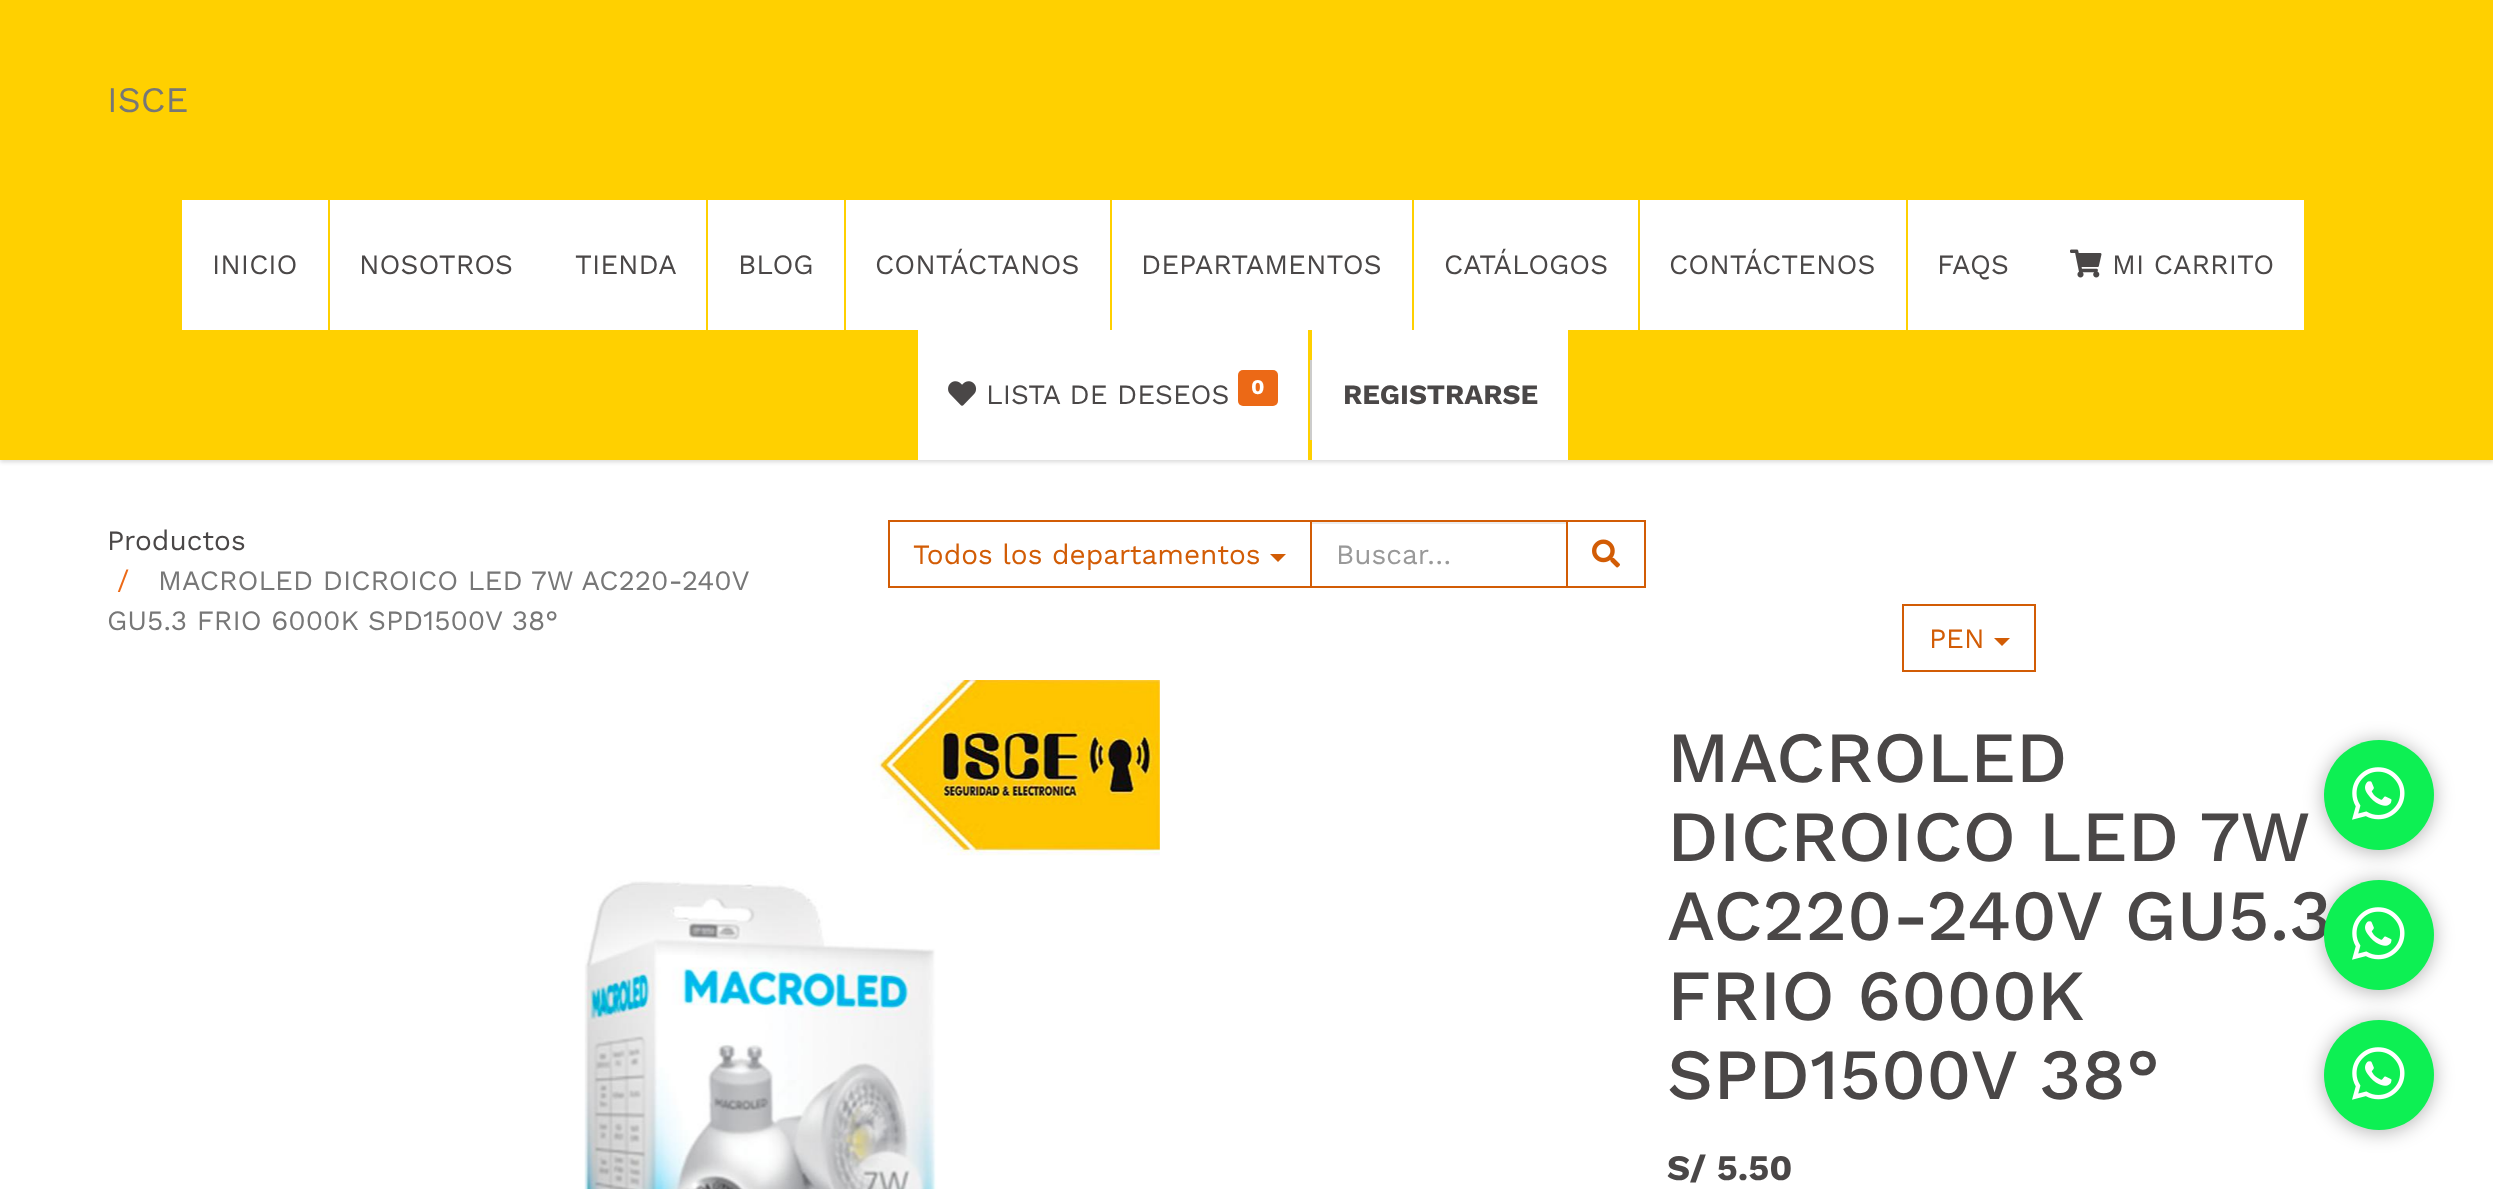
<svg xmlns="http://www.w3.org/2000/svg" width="2493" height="1189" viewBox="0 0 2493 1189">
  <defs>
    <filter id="blur1" x="-50%" y="-200%" width="200%" height="500%"><feGaussianBlur stdDeviation="2"/></filter>
    <filter id="blur2" x="-50%" y="-200%" width="200%" height="500%"><feGaussianBlur stdDeviation="10"/></filter>
  </defs>
  <rect width="100%" height="100%" fill="#ffffff"/>
  <rect x="0" y="2" width="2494" height="460" fill="#000000" fill-opacity="0.15" filter="url(#blur1)"/>
  <rect x="0" y="0" width="2493" height="460" fill="#ffd000"/>
  <text x="107" y="112" font-family="Work Sans" font-size="36" fill="#777777">ISCE</text>
  <rect x="182" y="200" width="146" height="130" fill="#ffffff"/>
  <text x="212" y="274" font-family="Work Sans" font-size="28" fill="#4a4747">INICIO</text>
  <rect x="330" y="200" width="376" height="130" fill="#ffffff"/>
  <text x="359" y="274" font-family="Work Sans" font-size="28" fill="#4a4747">NOSOTROS</text>
  <text x="575" y="274" font-family="Work Sans" font-size="28" fill="#4a4747">TIENDA</text>
  <rect x="708" y="200" width="136" height="130" fill="#ffffff"/>
  <text x="738" y="274" font-family="Work Sans" font-size="28" fill="#4a4747">BLOG</text>
  <rect x="846" y="200" width="264" height="130" fill="#ffffff"/>
  <text x="875" y="274" font-family="Work Sans" font-size="28" fill="#4a4747">CONTÁCTANOS</text>
  <rect x="1112" y="200" width="300" height="130" fill="#ffffff"/>
  <text x="1141" y="274" font-family="Work Sans" font-size="28" fill="#4a4747">DEPARTAMENTOS</text>
  <rect x="1414" y="200" width="224" height="130" fill="#ffffff"/>
  <text x="1444" y="274" font-family="Work Sans" font-size="28" fill="#4a4747">CATÁLOGOS</text>
  <rect x="1640" y="200" width="266" height="130" fill="#ffffff"/>
  <text x="1669" y="274" font-family="Work Sans" font-size="28" fill="#4a4747">CONTÁCTENOS</text>
  <rect x="1908" y="200" width="396" height="130" fill="#ffffff"/>
  <text x="1937" y="274" font-family="Work Sans" font-size="28" fill="#4a4747">FAQS</text>
  <image x="2070" y="249" width="32" height="29" href="img1.png"/>
  <text x="2112" y="274" font-family="Work Sans" font-size="28" fill="#4a4747">MI CARRITO</text>
  <rect x="918" y="330" width="390" height="130" fill="#ffffff"/>
  <image x="948" y="381" width="29" height="25" href="img2.png"/>
  <text x="986" y="404" font-family="Work Sans" font-size="28" fill="#4a4747">LISTA DE DESEOS</text>
  <rect x="1238" y="370" width="40" height="36" rx="5" fill="#ec6916"/>
  <text x="1251" y="394" font-family="Work Sans" font-size="21" font-weight="bold" fill="#ffffff">0</text>
  <rect x="1310" y="360" width="2" height="80" fill="#cccccc"/>
  <rect x="1312" y="330" width="256" height="130" fill="#ffffff"/>
  <text x="1343" y="404" font-family="Work Sans" font-size="28" font-weight="bold" fill="#4a4747">REGISTRARSE</text>
  <rect x="2324" y="1022" width="110" height="110" rx="55" fill="#000000" fill-opacity="0.3" filter="url(#blur2)"/>
  <circle cx="2379" cy="1075" r="55" fill="#0df053"/>
  <rect x="2324" y="882" width="110" height="110" rx="55" fill="#000000" fill-opacity="0.3" filter="url(#blur2)"/>
  <text x="1667" y="940" font-family="Work Sans" font-size="72" font-weight="500" fill="#4a4747">AC220-240V GU5.3</text>
  <circle cx="2379" cy="935" r="55" fill="#0df053"/>
  <rect x="2324" y="742" width="110" height="110" rx="55" fill="#000000" fill-opacity="0.3" filter="url(#blur2)"/>
  <circle cx="2379" cy="795" r="55" fill="#0df053"/>
  <image x="2352" y="767" width="53" height="53" href="img3.png"/>
  <image x="2352" y="907" width="53" height="53" href="img3.png"/>
  <image x="2352" y="1047" width="53" height="53" href="img3.png"/>
  <text x="107" y="550" font-family="Work Sans" font-size="28" fill="#4a4747">Productos</text>
  <text x="117" y="590" font-family="Work Sans" font-size="28" fill="#ec6916">/</text>
  <text x="158" y="590" font-family="Work Sans" font-size="28" fill="#777777">MACROLED DICROICO LED 7W AC220-240V</text>
  <text x="107" y="630" font-family="Work Sans" font-size="28" fill="#777777">GU5.3 FRIO 6000K SPD1500V 38°</text>
  <rect x="889" y="521" width="422" height="66" fill="none" stroke="#d25c05" stroke-width="2"/>
  <text x="913" y="564" font-family="Work Sans" font-size="28" fill="#d25c05">Todos los departamentos</text>
  <path d="M1270 554H1286L1278 562Z" fill="#d25c05"/>
  <rect x="1312" y="522" width="254" height="2" fill="#ececec"/>
  <rect x="1311" y="521" width="256" height="66" fill="none" stroke="#d25c05" stroke-width="2"/>
  <text x="1336" y="564" font-family="Work Sans" font-size="28" fill="#999999">Buscar…</text>
  <rect x="1567" y="521" width="78" height="66" fill="none" stroke="#d25c05" stroke-width="2"/>
  <image x="1592" y="539" width="28" height="29" href="img4.png"/>
  <rect x="1903" y="605" width="132" height="66" fill="none" stroke="#d25c05" stroke-width="2"/>
  <text x="1929" y="648" font-family="Work Sans" font-size="28" fill="#d25c05">PEN</text>
  <path d="M1994 638H2010L2002 646Z" fill="#d25c05"/>
  <image x="584" y="680" width="576" height="509" href="img5.png"/>
  <text x="1667" y="782" font-family="Work Sans" font-size="72" font-weight="500" fill="#4a4747">MACROLED</text>
  <text x="1667" y="861" word-spacing="-1" font-family="Work Sans" font-size="72" font-weight="500" fill="#4a4747">DICROICO LED 7W</text>
  <text x="1667" y="1020" word-spacing="-1" font-family="Work Sans" font-size="72" font-weight="500" fill="#4a4747">FRIO 6000K</text>
  <text x="1667" y="1099" font-family="Work Sans" font-size="72" font-weight="500" fill="#4a4747">SPD1500V 38°</text>
  <text x="1667" y="1180" font-family="Work Sans" font-size="36" font-weight="bold" fill="#4a4747">S/ 5.50</text>
</svg>
